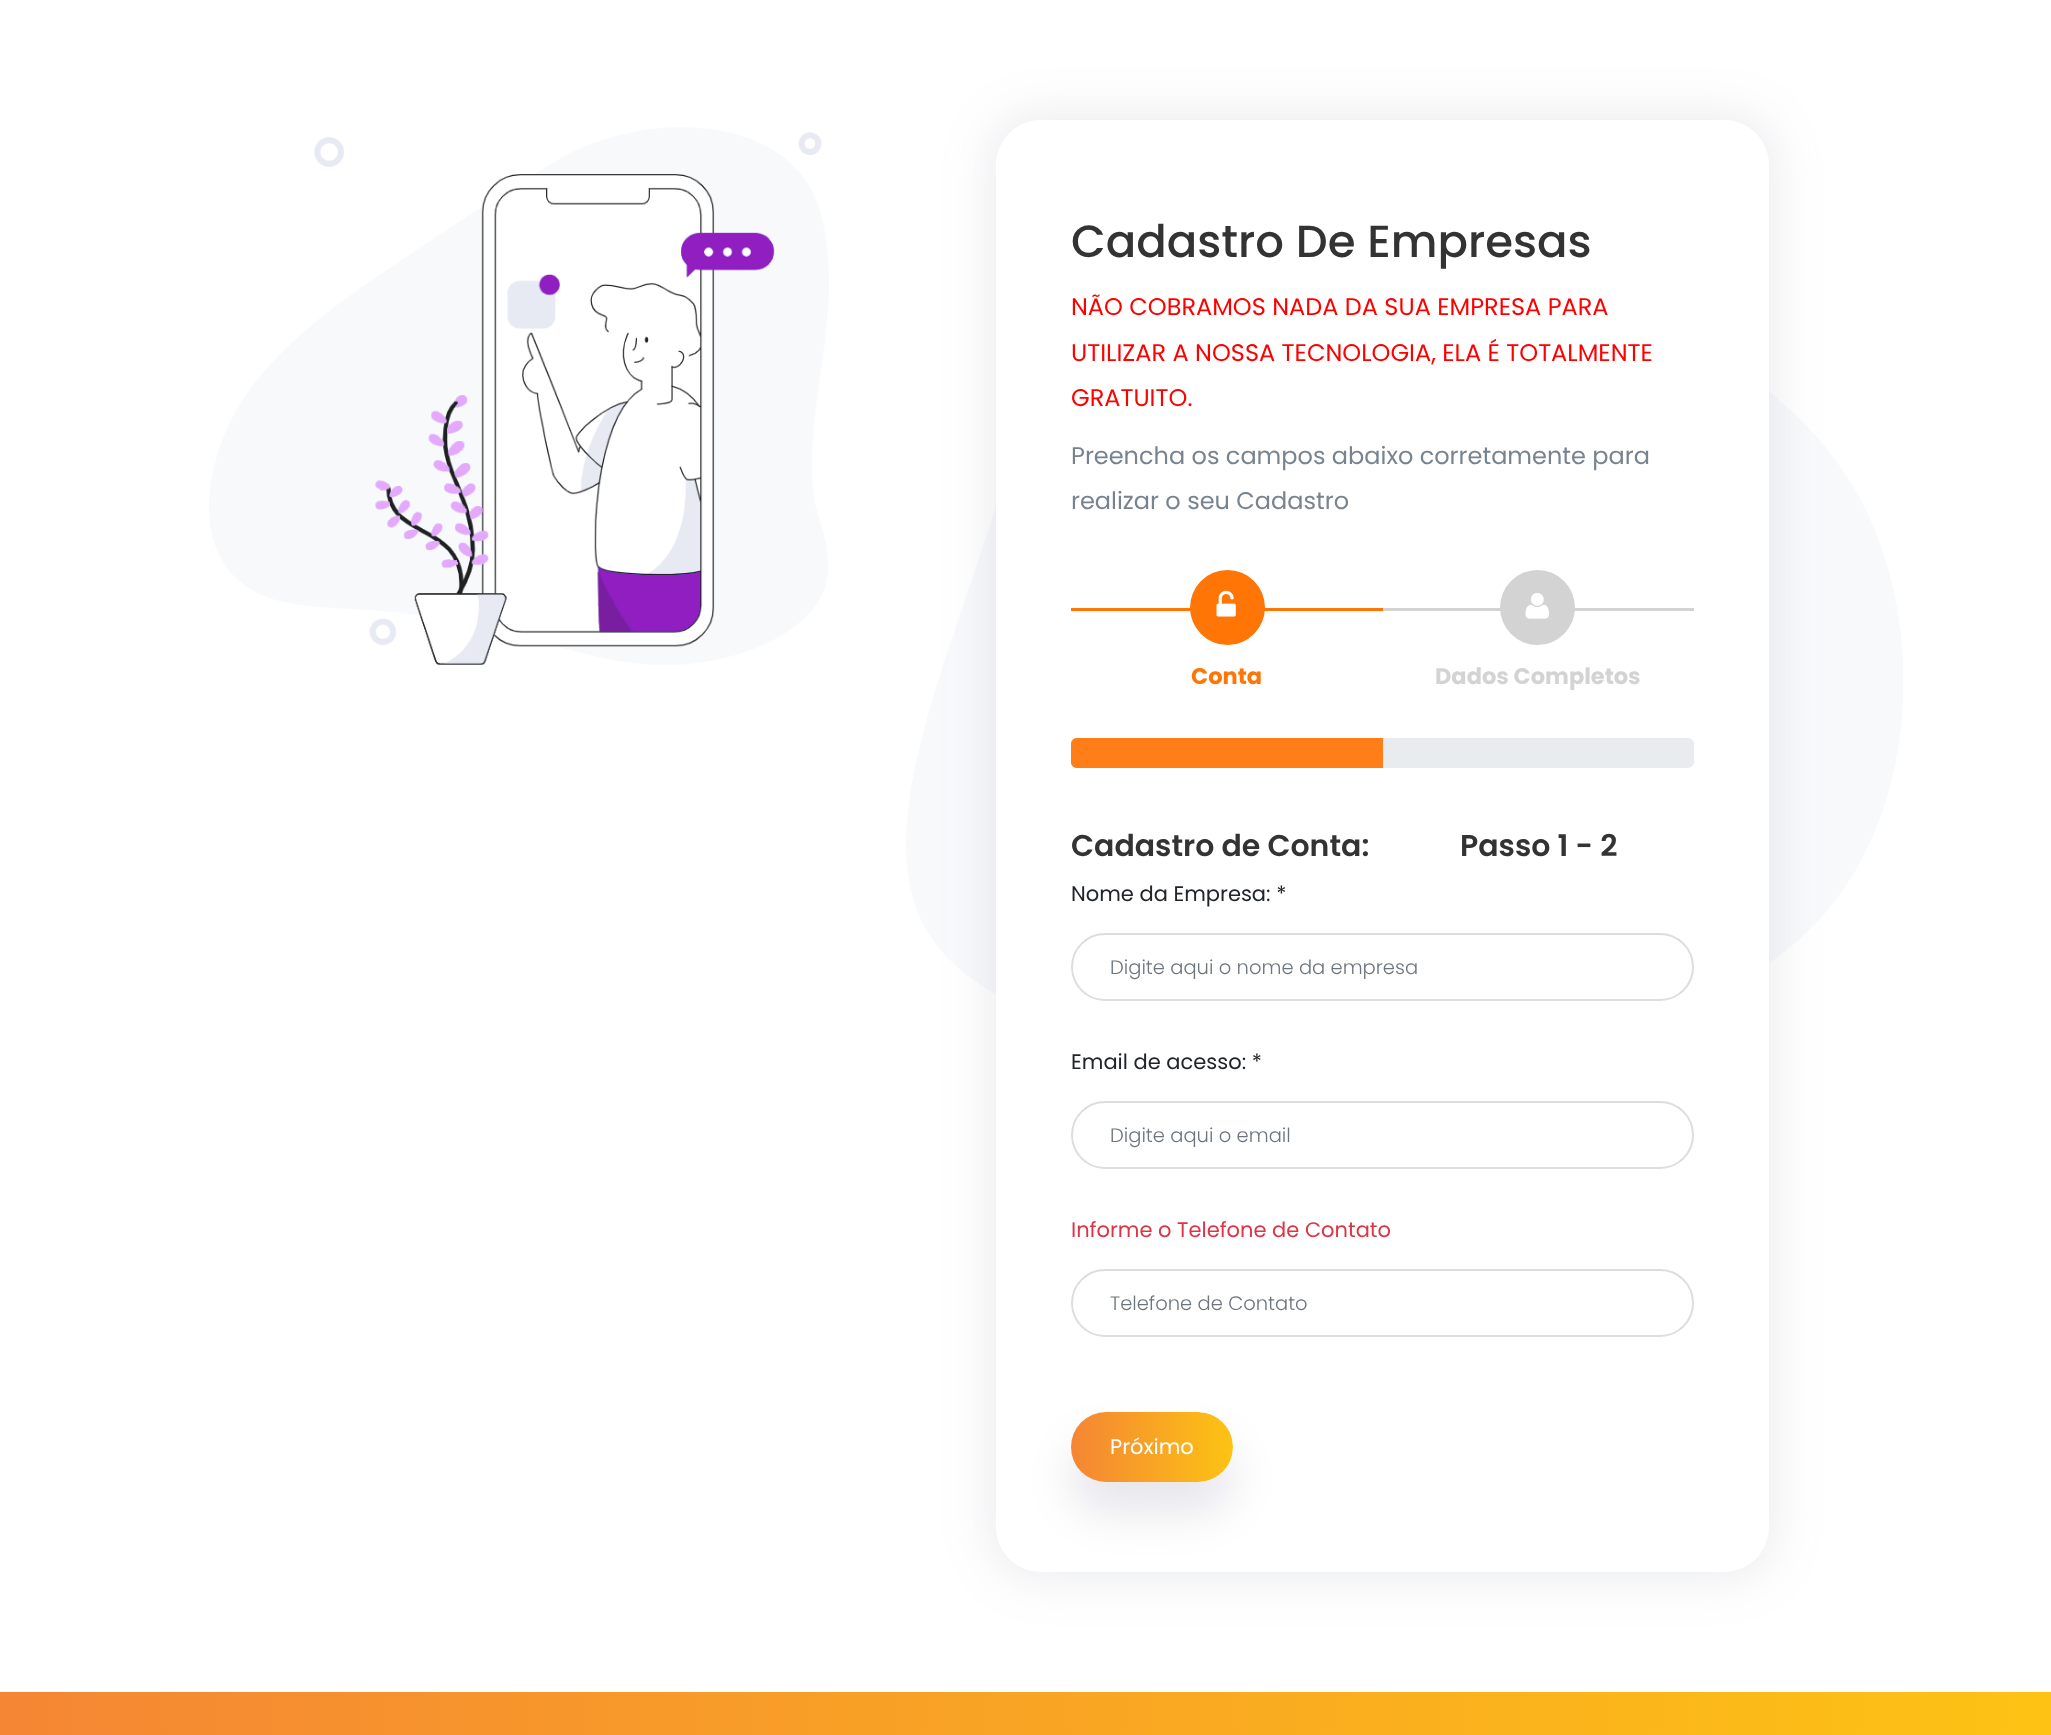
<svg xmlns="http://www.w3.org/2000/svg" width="2051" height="1735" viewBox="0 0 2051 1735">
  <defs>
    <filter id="blur1" x="-50%" y="-200%" width="200%" height="500%"><feGaussianBlur stdDeviation="22"/></filter>
    <filter id="blur2" x="-50%" y="-200%" width="200%" height="500%"><feGaussianBlur stdDeviation="22.5"/></filter>
    <clipPath id="clip1"><rect x="1071" y="1412" width="162" height="70" rx="35"/></clipPath>
    <linearGradient id="g1" gradientUnits="userSpaceOnUse" x1="755" y1="1447" x2="1073" y2="1447"><stop offset="0" stop-color="#f58634"/><stop offset="0.51" stop-color="#fdc413"/><stop offset="1" stop-color="#f58634"/></linearGradient>
    <linearGradient id="g2" gradientUnits="userSpaceOnUse" x1="1073" y1="1447" x2="1391" y2="1447"><stop offset="0" stop-color="#f58634"/><stop offset="0.51" stop-color="#fdc413"/><stop offset="1" stop-color="#f58634"/></linearGradient>
    <linearGradient id="g3" gradientUnits="userSpaceOnUse" x1="0" y1="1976" x2="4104" y2="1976"><stop offset="0" stop-color="#f58634"/><stop offset="0.51" stop-color="#fdc413"/><stop offset="1" stop-color="#f58634"/></linearGradient>
  </defs>
  <rect width="100%" height="100%" fill="#ffffff"/>
  <image x="209" y="127" width="620" height="538" href="img1.png"/>
  <image x="906" y="391" width="997" height="604" href="img4.png"/>
  <rect x="987" y="111" width="791" height="1470" rx="54" fill="#9aa1ab" fill-opacity="0.18" filter="url(#blur1)"/>
  <rect x="996" y="120" width="773" height="1452" rx="45" fill="#ffffff"/>
  <text x="1071" y="257" font-family="Poppins" font-size="45" font-weight="500" fill="#333333">Cadastro De Empresas</text>
  <text x="1071" y="315" font-family="Poppins" font-size="24" fill="#ff0000">NÃO COBRAMOS NADA DA SUA EMPRESA PARA</text>
  <text x="1071" y="361" font-family="Poppins" font-size="24" fill="#ff0000">UTILIZAR A NOSSA TECNOLOGIA, ELA É TOTALMENTE</text>
  <text x="1071" y="406" font-family="Poppins" font-size="24" fill="#ff0000">GRATUITO.</text>
  <text x="1071" y="464" font-family="Poppins" font-size="24" fill="#77838f">Preencha os campos abaixo corretamente para</text>
  <text x="1071" y="509" font-family="Poppins" font-size="24" fill="#77838f">realizar o seu Cadastro</text>
  <rect x="1071" y="608" width="312" height="3" fill="#ff7506"/>
  <circle cx="1227.5" cy="607.5" r="37.5" fill="#ff7506"/>
  <image x="1216" y="590" width="20" height="27" href="img2.png"/>
  <text x="1191" y="684" font-family="Poppins" font-size="22.5" font-weight="bold" fill="#ff7506">Conta</text>
  <rect x="1383" y="608" width="311" height="3" fill="#d3d3d3"/>
  <circle cx="1537.5" cy="607.5" r="37.5" fill="#d3d3d3"/>
  <image x="1525" y="593" width="24" height="26" href="img3.png"/>
  <text x="1435" y="684" font-family="Poppins" font-size="22.5" font-weight="bold" fill="#d3d3d3">Dados Completos</text>
  <rect x="1071" y="738" width="623" height="30" rx="6" fill="#e9ecef"/>
  <path d="M1077 738H1383V768H1077C1073.5 768 1071 765.5 1071 762V744C1071 740.5 1073.5 738 1077 738Z" fill="#ff7506"/>
  <path d="M1077 738H1383V768H1077C1073.5 768 1071 765.5 1071 762V744C1071 740.5 1073.5 738 1077 738Z" fill="#ffffff" fill-opacity="0.07"/>
  <text x="1071" y="856" font-family="Poppins" font-size="30" font-weight="600" fill="#333333">Cadastro de Conta:</text>
  <text x="1460" y="856" font-family="Poppins" font-size="30" font-weight="600" fill="#333333">Passo 1 - 2</text>
  <text x="1071" y="901" font-family="Poppins" font-size="21" fill="#212529">Nome da Empresa: *</text>
  <rect x="1072" y="934" width="621" height="66" rx="33" fill="none" stroke="#dddddd" stroke-width="2"/>
  <text x="1110" y="974" font-family="Poppins" font-size="19.5" font-weight="300" fill="#6c757d">Digite aqui o nome da empresa</text>
  <text x="1071" y="1069" font-family="Poppins" font-size="21" fill="#212529">Email de acesso: *</text>
  <rect x="1072" y="1102" width="621" height="66" rx="33" fill="none" stroke="#dddddd" stroke-width="2"/>
  <text x="1110" y="1142" font-family="Poppins" font-size="19.5" font-weight="300" fill="#6c757d">Digite aqui o email</text>
  <text x="1071" y="1237" font-family="Poppins" font-size="21" fill="#dc3545">Informe o Telefone de Contato</text>
  <rect x="1072" y="1270" width="621" height="66" rx="33" fill="none" stroke="#dddddd" stroke-width="2"/>
  <text x="1110" y="1310" font-family="Poppins" font-size="19.5" font-weight="300" fill="#6c757d">Telefone de Contato</text>
  <rect x="1071" y="1442" width="162" height="70" rx="35" fill="#0c002e" fill-opacity="0.1" filter="url(#blur2)"/>
  <g clip-path="url(#clip1)">
    <rect x="1071" y="1435" width="2" height="24" fill="url(#g1)"/>
    <path d="M1073 1412H1198C1217.5 1412 1233 1427.5 1233 1447C1233 1466.5 1217.5 1482 1198 1482H1073Z" fill="url(#g2)"/>
  </g>
  <text x="1110" y="1454" font-family="Poppins" font-size="21" fill="#ffffff">Próximo</text>
  <rect x="0" y="1692" width="2051" height="43" fill="url(#g3)"/>
</svg>
